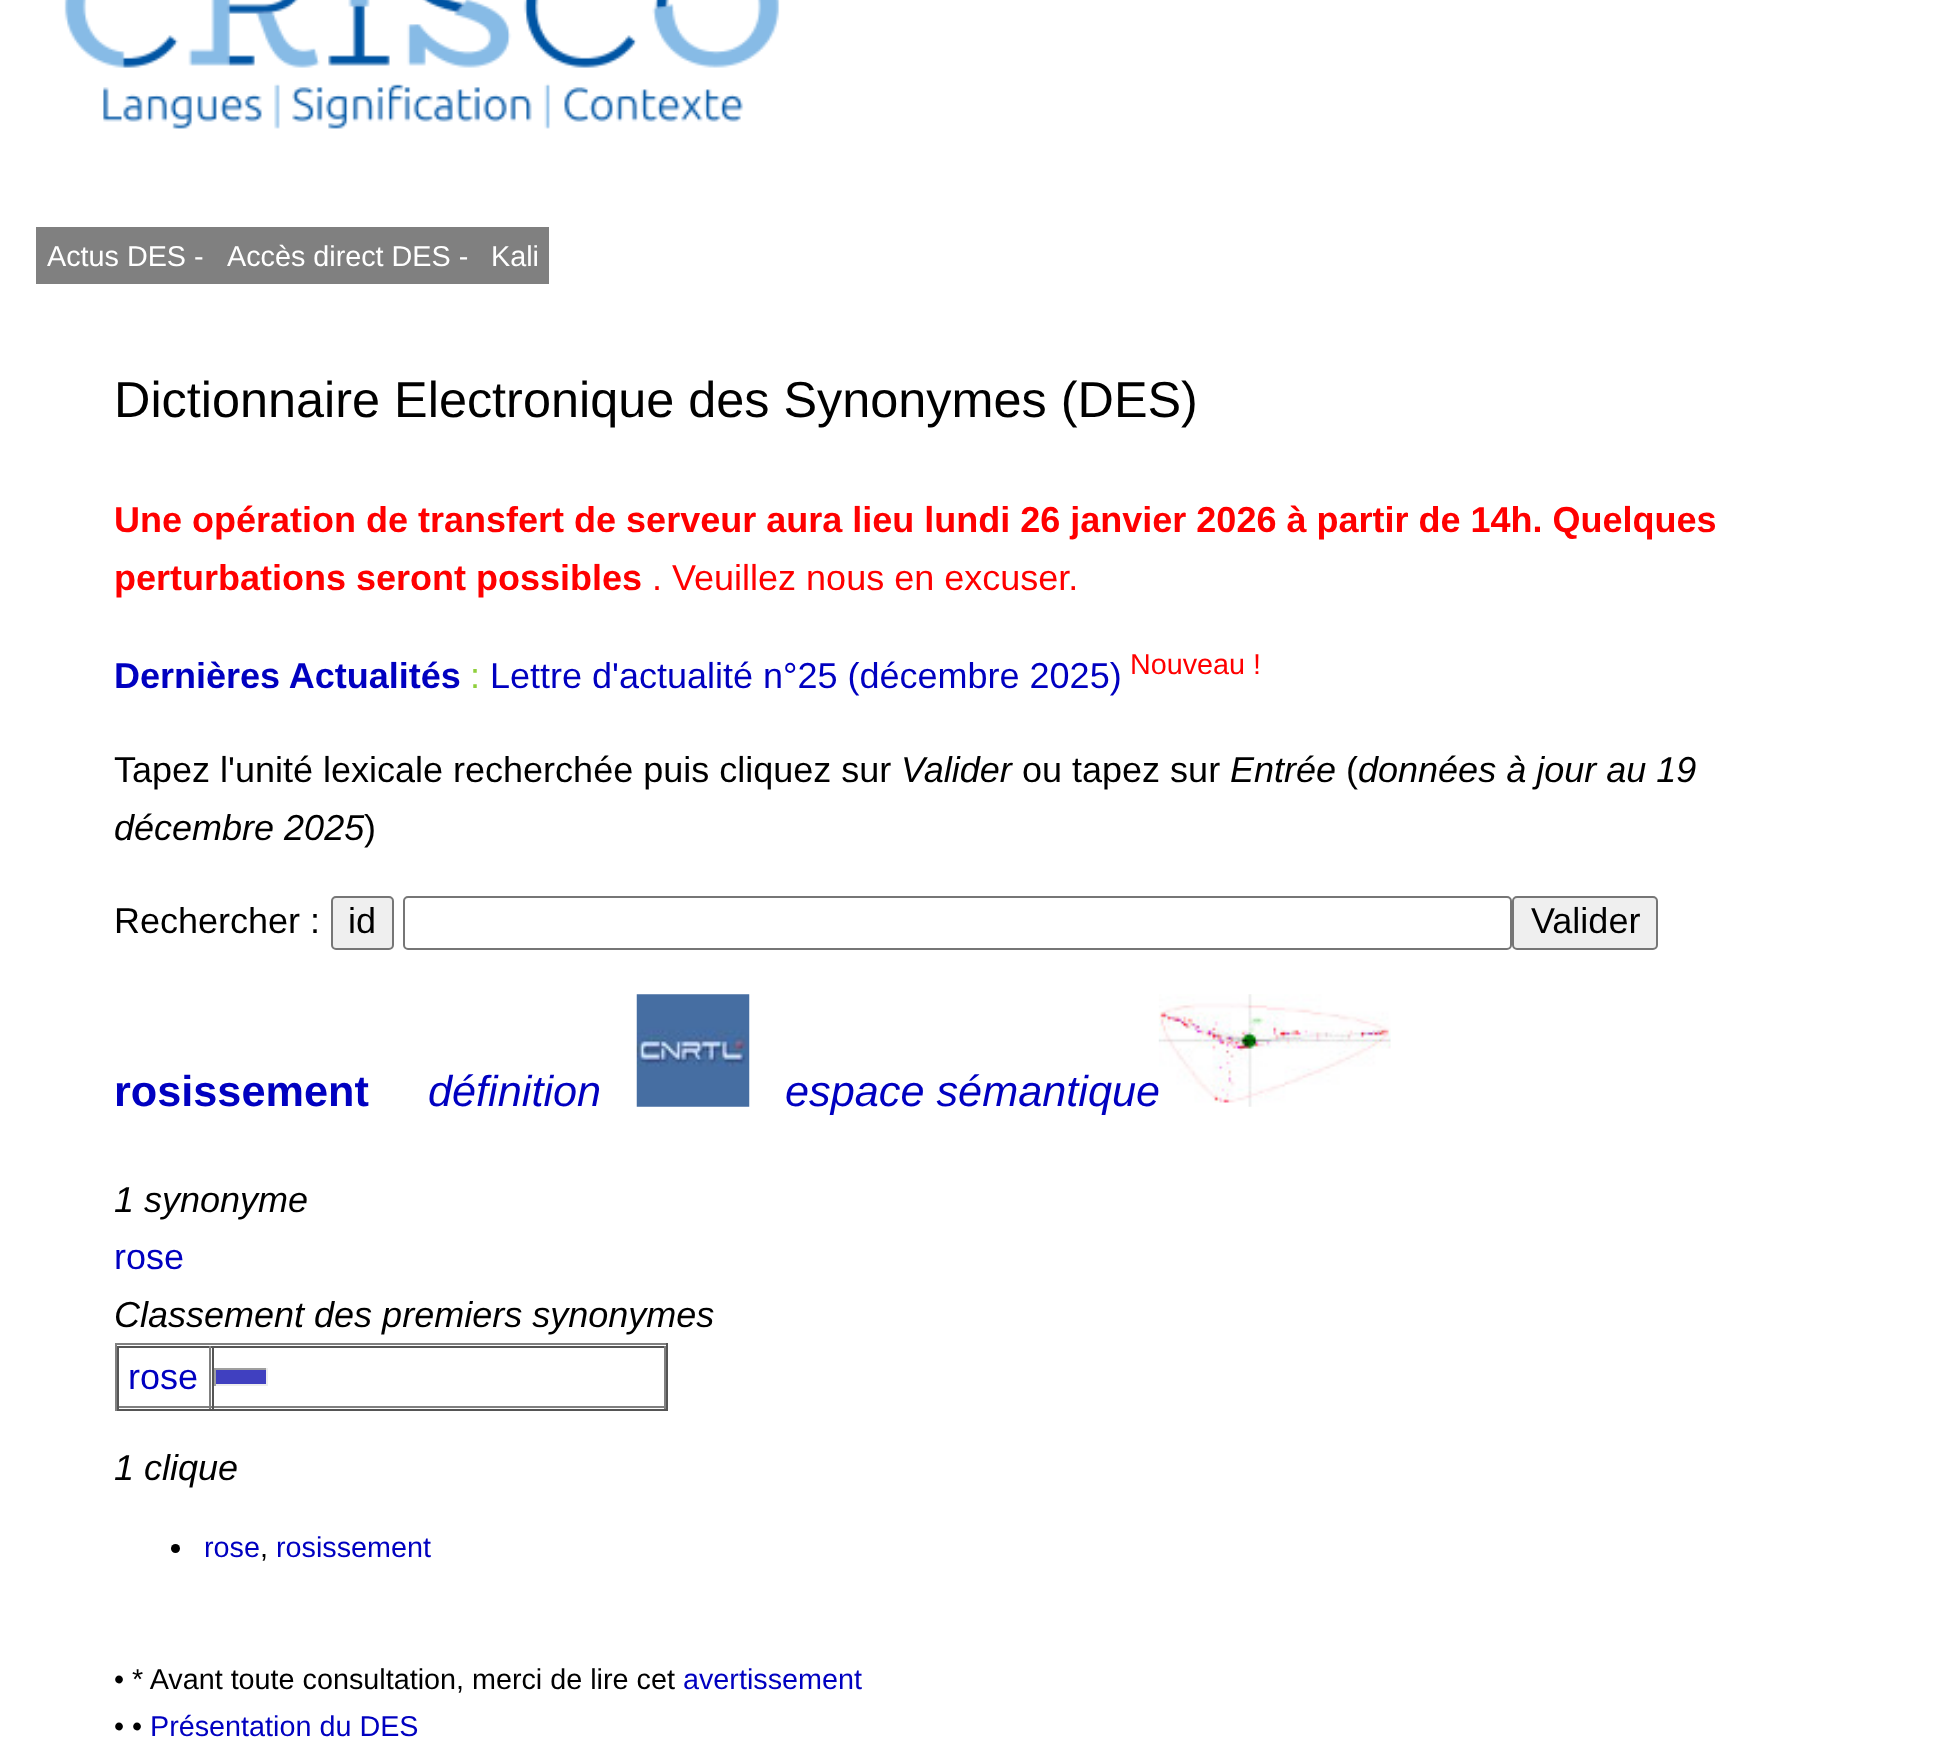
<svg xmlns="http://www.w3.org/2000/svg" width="1948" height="1749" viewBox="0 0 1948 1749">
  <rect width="100%" height="100%" fill="#ffffff"/>
  <image x="64" y="0" width="716" height="129" href="img1.png"/>
  <rect x="36" y="227" width="513" height="57" fill="#808080"/>
  <text x="47" y="266" font-family="Liberation Sans" font-size="28.75" fill="#ffffff">Actus DES -</text>
  <text x="227" y="266" font-family="Liberation Sans" font-size="28.75" fill="#ffffff">Accès direct DES -</text>
  <text x="491" y="266" font-family="Liberation Sans" font-size="28.75" fill="#ffffff">Kali</text>
  <text x="114" y="417" font-family="Liberation Sans" font-size="50.4" fill="#000000">Dictionnaire Electronique des Synonymes (DES)</text>
  <text x="114" y="532" font-family="Liberation Sans" font-size="36" font-weight="bold" fill="#ff0000">Une opération de transfert de serveur aura lieu lundi 26 janvier 2026 à partir de 14h. Quelques</text>
  <text x="114" y="590" font-family="Liberation Sans" font-size="36" font-weight="bold" fill="#ff0000">perturbations seront possibles</text>
  <text x="652" y="590" font-family="Liberation Sans" font-size="36" fill="#ff0000">. Veuillez nous en excuser.</text>
  <text x="114" y="688" font-family="Liberation Sans" font-size="36" font-weight="bold" fill="#0000c0">Dernières Actualités</text>
  <text x="470" y="688" font-family="Liberation Sans" font-size="36" fill="#8fcf3c">:</text>
  <text x="490" y="688" font-family="Liberation Sans" font-size="36" fill="#0000c0">Lettre d'actualité n°25 (décembre 2025)</text>
  <text x="1130" y="674" font-family="Liberation Sans" font-size="28.75" fill="#ff0000">Nouveau !</text>
  <text x="114" y="782" font-family="Liberation Sans" font-size="36" fill="#000000">Tapez l'unité lexicale recherchée puis cliquez sur</text>
  <text x="901" y="782" font-family="Liberation Sans" font-size="36" font-style="italic" fill="#000000">Valider</text>
  <text x="1022" y="782" font-family="Liberation Sans" font-size="36" fill="#000000">ou tapez sur</text>
  <text x="1230" y="782" font-family="Liberation Sans" font-size="36" font-style="italic" fill="#000000">Entrée</text>
  <text x="1346" y="782" font-family="Liberation Sans" font-size="36" fill="#000000">(</text>
  <text x="1358" y="782" font-family="Liberation Sans" font-size="36" font-style="italic" fill="#000000">données à jour au 19</text>
  <text x="114" y="840" font-family="Liberation Sans" font-size="36" font-style="italic" fill="#000000">décembre 2025</text>
  <text x="364" y="840" font-family="Liberation Sans" font-size="36" fill="#000000">)</text>
  <text x="114" y="933" font-family="Liberation Sans" font-size="36" fill="#000000">Rechercher :</text>
  <rect x="332" y="897" width="61" height="52" rx="4" fill="#efefef" stroke="#767676" stroke-width="2"/>
  <text x="348" y="933" font-family="Liberation Sans" font-size="36" fill="#000000">id</text>
  <rect x="404" y="897" width="1107" height="52" rx="4" fill="none" stroke="#767676" stroke-width="2"/>
  <rect x="1513" y="897" width="144" height="52" rx="4" fill="#efefef" stroke="#767676" stroke-width="2"/>
  <text x="1531" y="933" font-family="Liberation Sans" font-size="36" fill="#000000">Valider</text>
  <text x="114" y="1106" font-family="Liberation Sans" font-size="43.25" font-weight="bold" fill="#0000c0">rosissement</text>
  <text x="428" y="1106" font-family="Liberation Sans" font-size="43.25" font-style="italic" fill="#0000c0">définition</text>
  <image x="636" y="994" width="114" height="113" href="img2.png"/>
  <text x="785" y="1106" font-family="Liberation Sans" font-size="43.25" font-style="italic" fill="#0000c0">espace sémantique</text>
  <image x="1158" y="994" width="233" height="113" href="img3.png"/>
  <text x="114" y="1212" font-family="Liberation Sans" font-size="36" font-style="italic" fill="#000000">1 synonyme</text>
  <text x="114" y="1269" font-family="Liberation Sans" font-size="36" fill="#0000c0">rose</text>
  <text x="114" y="1327" font-family="Liberation Sans" font-size="36" font-style="italic" fill="#000000">Classement des premiers synonymes</text>
  <rect x="115" y="1343" width="553" height="2" fill="#808080"/>
  <rect x="666" y="1343" width="2" height="68" fill="#555555"/>
  <rect x="115" y="1409" width="553" height="2" fill="#555555"/>
  <rect x="115" y="1343" width="2" height="68" fill="#808080"/>
  <rect x="117" y="1346" width="549" height="2" fill="#555555"/>
  <rect x="209" y="1346" width="2" height="63" fill="#808080"/>
  <rect x="117" y="1406" width="95" height="2" fill="#808080"/>
  <rect x="117" y="1346" width="2" height="63" fill="#555555"/>
  <text x="128" y="1389" font-family="Liberation Sans" font-size="36" fill="#0000c0">rose</text>
  <rect x="664" y="1346" width="2" height="63" fill="#808080"/>
  <rect x="212" y="1406" width="454" height="2" fill="#808080"/>
  <rect x="212" y="1346" width="2" height="63" fill="#555555"/>
  <rect x="216" y="1370" width="50" height="14" fill="#4040c0"/>
  <rect x="214" y="1368" width="54" height="2" fill="#9f9f9f"/>
  <rect x="266" y="1368" width="2" height="18" fill="#eeeeee"/>
  <rect x="214" y="1384" width="54" height="2" fill="#eeeeee"/>
  <rect x="214" y="1368" width="2" height="18" fill="#9f9f9f"/>
  <text x="114" y="1480" font-family="Liberation Sans" font-size="36" font-style="italic" fill="#000000">1 clique</text>
  <circle cx="175.5" cy="1548.5" r="4.5" fill="#000000"/>
  <text x="204" y="1557" font-family="Liberation Sans" font-size="28.75" fill="#0000c0">rose</text>
  <text x="276" y="1557" font-family="Liberation Sans" font-size="28.75" fill="#0000c0">rosissement</text>
  <text x="260" y="1557" font-family="Liberation Sans" font-size="28.75" fill="#000000">,</text>
  <text x="114" y="1689" font-family="Liberation Sans" font-size="28.75" fill="#000000">• * Avant toute consultation, merci de lire cet</text>
  <text x="683" y="1689" font-family="Liberation Sans" font-size="28.75" fill="#0000c0">avertissement</text>
  <text x="114" y="1736" font-family="Liberation Sans" font-size="28.75" fill="#000000">• •</text>
  <text x="150" y="1736" font-family="Liberation Sans" font-size="28.75" fill="#0000c0">Présentation du DES</text>
</svg>
